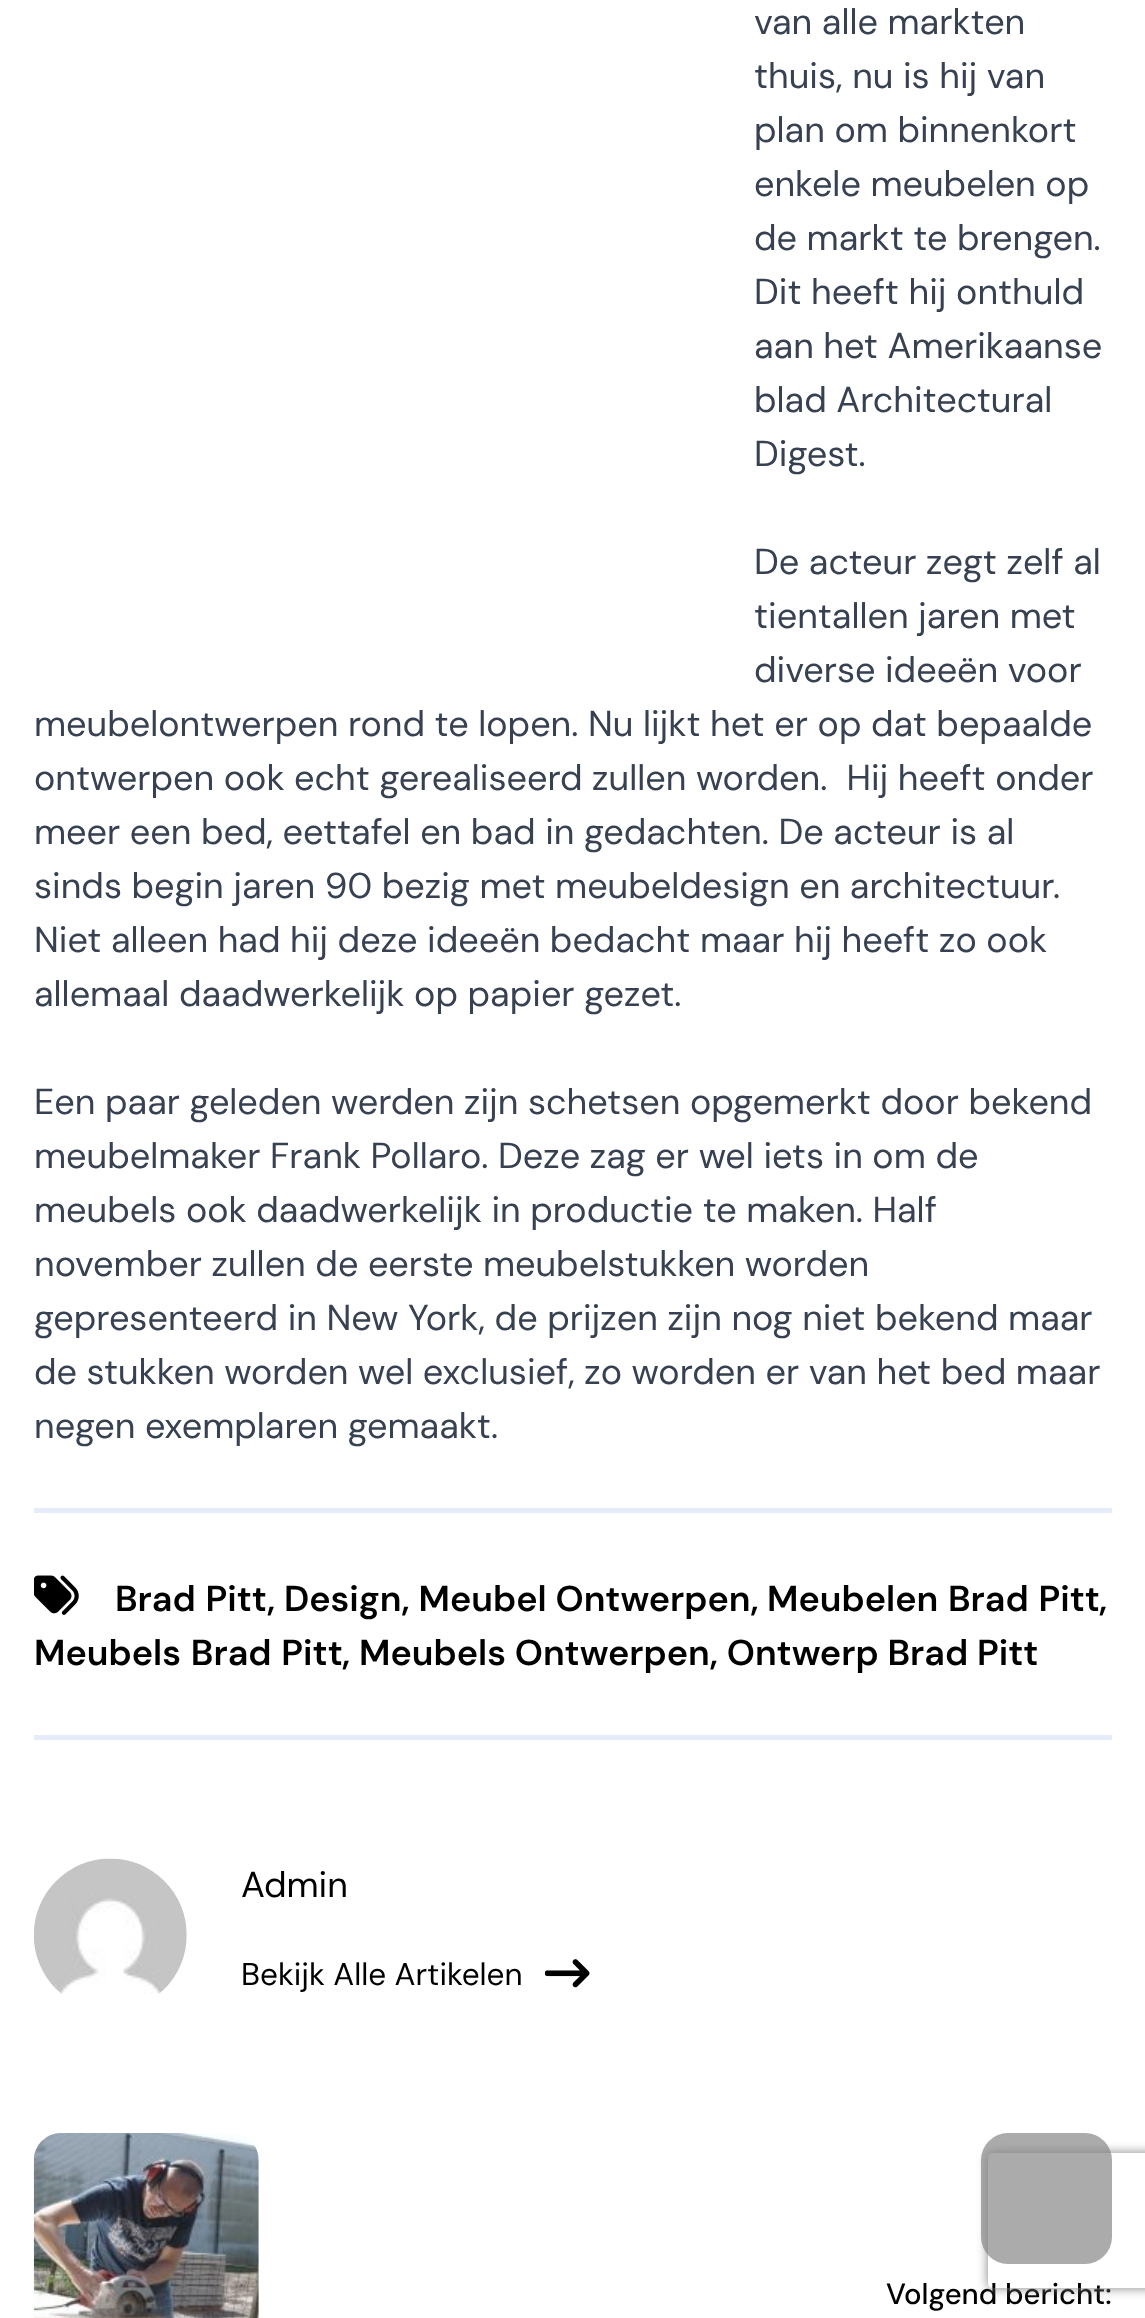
<svg xmlns="http://www.w3.org/2000/svg" width="1145" height="2318" viewBox="0 0 1145 2318">
  <defs>
    <clipPath id="clip1"><path d="M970 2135H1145V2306H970ZM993 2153H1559C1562 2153 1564 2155 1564 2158V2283C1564 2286 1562 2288 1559 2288H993C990 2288 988 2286 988 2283V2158C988 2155 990 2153 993 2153Z" clip-rule="evenodd"/></clipPath>
    <filter id="blur1" x="-50%" y="-200%" width="200%" height="500%"><feGaussianBlur stdDeviation="5.5"/></filter>
  </defs>
  <rect width="100%" height="100%" fill="#ffffff"/>
  <text x="754" y="34" font-family="DM Sans" font-size="36" fill="#374151">van alle markten</text>
  <text x="754" y="88" font-family="DM Sans" font-size="36" fill="#374151">thuis, nu is hij van</text>
  <text x="754" y="142" font-family="DM Sans" font-size="36" fill="#374151">plan om binnenkort</text>
  <text x="754" y="196" font-family="DM Sans" font-size="36" fill="#374151">enkele meubelen op</text>
  <text x="754" y="250" font-family="DM Sans" font-size="36" fill="#374151">de markt te brengen.</text>
  <text x="754" y="304" font-family="DM Sans" font-size="36" fill="#374151">Dit heeft hij onthuld</text>
  <text x="754" y="358" font-family="DM Sans" font-size="36" fill="#374151">aan het Amerikaanse</text>
  <text x="754" y="412" font-family="DM Sans" font-size="36" fill="#374151">blad Architectural</text>
  <text x="754" y="466" font-family="DM Sans" font-size="36" fill="#374151">Digest.</text>
  <text x="754" y="574" font-family="DM Sans" font-size="36" fill="#374151">De acteur zegt zelf al</text>
  <text x="754" y="628" font-family="DM Sans" font-size="36" fill="#374151">tientallen jaren met</text>
  <text x="754" y="682" font-family="DM Sans" font-size="36" fill="#374151">diverse ideeën voor</text>
  <text x="34" y="736" font-family="DM Sans" font-size="36" fill="#374151">meubelontwerpen rond te lopen. Nu lijkt het er op dat bepaalde</text>
  <text x="34" y="790" font-family="DM Sans" font-size="36" fill="#374151" xml:space="preserve">ontwerpen ook echt gerealiseerd zullen worden.  Hij heeft onder</text>
  <text x="34" y="844" font-family="DM Sans" font-size="36" fill="#374151">meer een bed, eettafel en bad in gedachten. De acteur is al</text>
  <text x="34" y="898" font-family="DM Sans" font-size="36" fill="#374151">sinds begin jaren 90 bezig met meubeldesign en architectuur.</text>
  <text x="34" y="952" font-family="DM Sans" font-size="36" fill="#374151">Niet alleen had hij deze ideeën bedacht maar hij heeft zo ook</text>
  <text x="34" y="1006" font-family="DM Sans" font-size="36" fill="#374151">allemaal daadwerkelijk op papier gezet.</text>
  <text x="34" y="1114" font-family="DM Sans" font-size="36" fill="#374151">Een paar geleden werden zijn schetsen opgemerkt door bekend</text>
  <text x="34" y="1168" font-family="DM Sans" font-size="36" fill="#374151">meubelmaker Frank Pollaro. Deze zag er wel iets in om de</text>
  <text x="34" y="1222" font-family="DM Sans" font-size="36" fill="#374151">meubels ook daadwerkelijk in productie te maken. Half</text>
  <text x="34" y="1276" font-family="DM Sans" font-size="36" fill="#374151">november zullen de eerste meubelstukken worden</text>
  <text x="34" y="1330" font-family="DM Sans" font-size="36" fill="#374151">gepresenteerd in New York, de prijzen zijn nog niet bekend maar</text>
  <text x="34" y="1384" font-family="DM Sans" font-size="36" fill="#374151">de stukken worden wel exclusief, zo worden er van het bed maar</text>
  <text x="34" y="1438" font-family="DM Sans" font-size="36" fill="#374151">negen exemplaren gemaakt.</text>
  <rect x="34" y="1508" width="1078" height="5" fill="#e5ebf8"/>
  <rect x="34" y="1735" width="1078" height="5" fill="#e5ebf8"/>
  <image x="34" y="1575" width="45" height="40" href="img1.png"/>
  <text x="115" y="1611" word-spacing="1" font-family="DM Sans" font-size="36" font-weight="600" fill="#000000">Brad Pitt</text>
  <text x="267" y="1611" font-family="DM Sans" font-size="36" font-weight="600" fill="#000000">, Design, Meubel Ontwerpen,</text>
  <text x="767" y="1611" word-spacing="1" font-family="DM Sans" font-size="36" font-weight="600" fill="#000000">Meubelen Brad Pitt</text>
  <text x="1099" y="1611" font-family="DM Sans" font-size="36" font-weight="600" fill="#000000">,</text>
  <text x="34" y="1665" word-spacing="1" font-family="DM Sans" font-size="36" font-weight="600" fill="#000000">Meubels Brad Pitt</text>
  <text x="342" y="1665" font-family="DM Sans" font-size="36" font-weight="600" fill="#000000">, Meubels Ontwerpen, Ontwerp Brad Pitt</text>
  <image x="34" y="1858" width="153" height="136" href="img2.png"/>
  <text x="241" y="1897" font-family="DM Sans" font-size="36" fill="#000000">Admin</text>
  <text x="241" y="1985" font-family="'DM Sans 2'" font-size="31.5" fill="#000000">Bekijk Alle Artikelen</text>
  <image x="545" y="1959" width="45" height="29" href="img3.png"/>
  <image x="33" y="2133" width="226" height="185" href="img4.png"/>
  <rect x="981" y="2133" width="131" height="131" rx="27" fill="#ababab"/>
  <text x="886" y="2304" font-family="DM Sans" font-size="29.25" font-weight="500" fill="#000000">Volgend bericht:</text>
  <g clip-path="url(#clip1)">
    <rect x="988" y="2153" width="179" height="135" rx="5" fill="#808080" filter="url(#blur1)"/>
  </g>
</svg>
